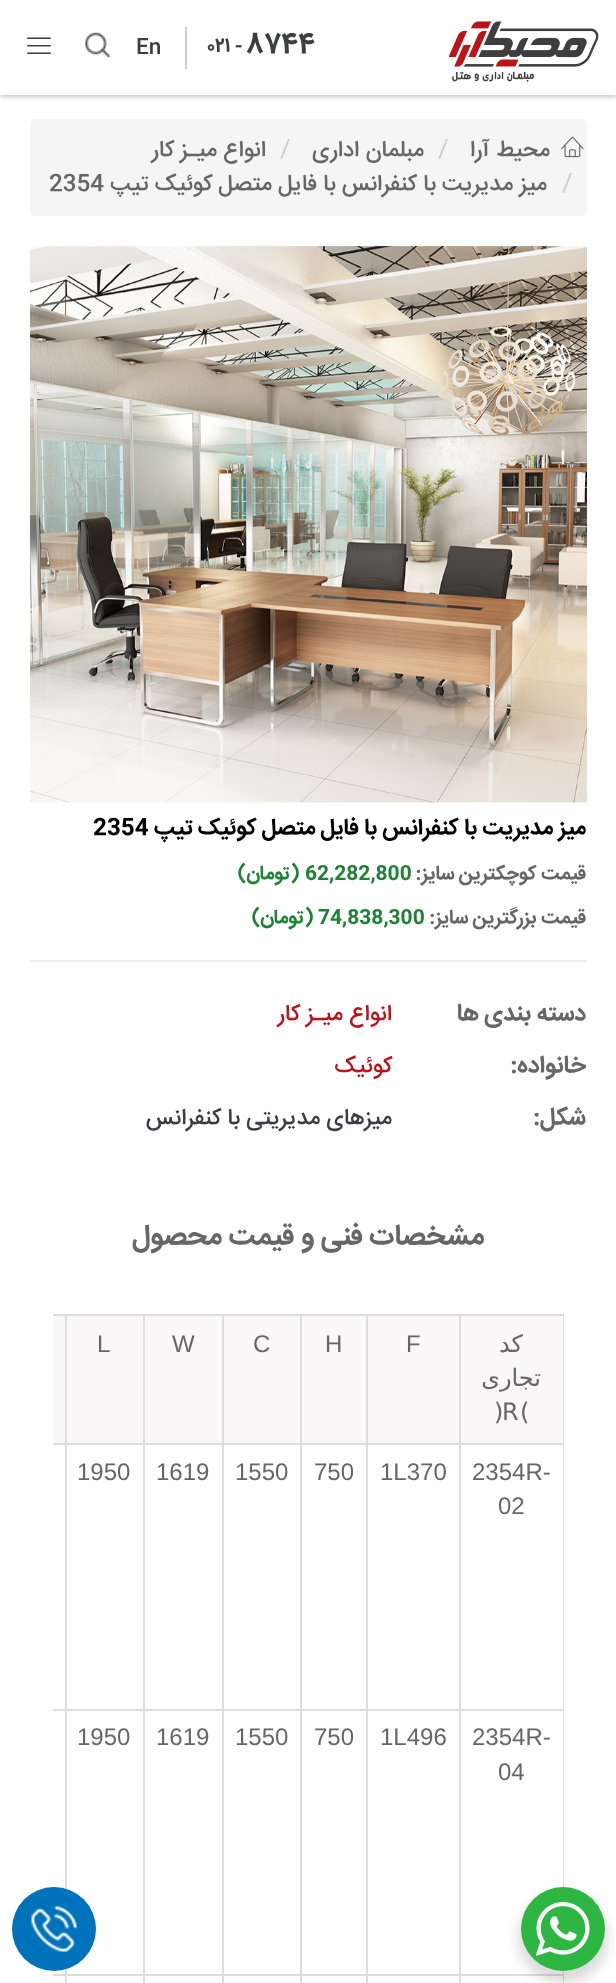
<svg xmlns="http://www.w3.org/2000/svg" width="616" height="1983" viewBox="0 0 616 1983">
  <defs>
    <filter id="blur1" x="-50%" y="-200%" width="200%" height="500%"><feGaussianBlur stdDeviation="3"/></filter>
    <filter id="blur2" x="-50%" y="-200%" width="200%" height="500%"><feGaussianBlur stdDeviation="6"/></filter>
  </defs>
  <rect width="100%" height="100%" fill="#ffffff"/>
  <rect x="0" y="0" width="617" height="95" fill="#000000" fill-opacity="0.4" filter="url(#blur1)"/>
  <rect x="0" y="0" width="616" height="95" fill="#ffffff"/>
  <image x="449" y="21" width="150" height="61" href="img1.png"/>
  <text x="246" y="52" font-family="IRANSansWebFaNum" font-size="27" font-weight="bold" fill="#3d3e3e">8744</text>
  <text x="235" y="52" font-family="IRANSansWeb" font-size="21" font-weight="500" fill="#3d3e3e">-</text>
  <text x="207" y="51" font-family="IRANSansWebFaNum" font-size="18" font-weight="bold" fill="#3d3e3e">021</text>
  <rect x="185" y="27" width="2" height="42" fill="#cccccc"/>
  <text x="136" y="53" font-family="IRANSansWeb" font-size="21" font-weight="500" fill="#3d3e3e">En</text>
  <image x="85" y="32" width="25" height="26" href="img2.png"/>
  <image x="27" y="37" width="24" height="17" href="img3.png"/>
  <rect x="30" y="119" width="557" height="97" rx="5" fill="#f5f5f5"/>
  <image x="561" y="136" width="23" height="22" href="img4.png"/>
  <text x="550" y="156" font-family="IRANSansWeb" font-size="22.5" font-weight="500" direction="rtl" fill="#666666">محیط آرا</text>
  <text x="438" y="156" font-family="IRANSansWeb" font-size="24" fill="#cccccc">/</text>
  <text x="424" y="156" font-family="IRANSansWeb" font-size="22.5" font-weight="500" direction="rtl" fill="#666666">مبلمان اداری</text>
  <text x="280" y="156" font-family="IRANSansWeb" font-size="24" fill="#cccccc">/</text>
  <text x="266" y="156" font-family="IRANSansWeb" font-size="22.5" font-weight="500" direction="rtl" fill="#666666">انواع میـز کار</text>
  <text x="562" y="190" font-family="IRANSansWeb" font-size="24" fill="#cccccc">/</text>
  <text x="547" y="190" font-family="IRANSansWeb" font-size="22.5" font-weight="500" direction="rtl" fill="#666666">میز مدیریت با کنفرانس با فایل متصل کوئیک تیپ</text>
  <text x="49" y="190" font-family="IRANSansWeb" font-size="22.5" font-weight="500" fill="#666666">2354</text>
  <image x="30" y="246" width="557" height="557" href="img5.png"/>
  <text x="586" y="834" font-family="IRANSansWeb" font-size="22.5" font-weight="bold" direction="rtl" fill="#000000">میز مدیریت با کنفرانس با فایل متصل کوئیک تیپ</text>
  <text x="93" y="834" font-family="IRANSansWeb" font-size="22.5" font-weight="bold" fill="#000000">2354</text>
  <text x="586" y="879" font-family="IRANSansWeb" font-size="19.5" font-weight="bold" direction="rtl" fill="#666666">قیمت کوچکترین سایز:</text>
  <text x="305" y="879" font-family="IRANSansWeb" font-size="19.5" font-weight="bold" fill="#1f8236">62,282,800</text>
  <text x="300" y="879" font-family="IRANSansWeb" font-size="19.5" font-weight="bold" direction="rtl" fill="#1f8236">(تومان)</text>
  <text x="586" y="923" font-family="IRANSansWeb" font-size="19.5" font-weight="bold" direction="rtl" fill="#666666">قیمت بزرگترین سایز:</text>
  <text x="318" y="923" font-family="IRANSansWeb" font-size="19.5" font-weight="bold" fill="#1f8236">74,838,300</text>
  <text x="314" y="923" font-family="IRANSansWeb" font-size="19.5" font-weight="bold" direction="rtl" fill="#1f8236">(تومان)</text>
  <rect x="30" y="960" width="557" height="2" fill="#eeeeee"/>
  <text x="586" y="1020" font-family="IRANSansWeb" font-size="24" font-weight="bold" direction="rtl" fill="#666666">دسته بندی ها</text>
  <text x="392" y="1020" font-family="IRANSansWeb" font-size="22.5" font-weight="500" direction="rtl" fill="#ba131a">انواع میـز کار</text>
  <text x="586" y="1072" font-family="IRANSansWeb" font-size="24" font-weight="bold" direction="rtl" fill="#666666">خانواده:</text>
  <text x="392" y="1072" font-family="IRANSansWeb" font-size="22.5" font-weight="500" direction="rtl" fill="#ba131a">کوئیک</text>
  <text x="586" y="1124" font-family="IRANSansWeb" font-size="24" font-weight="bold" direction="rtl" fill="#666666">شکل:</text>
  <text x="392" y="1124" font-family="IRANSansWeb" font-size="22.5" font-weight="500" direction="rtl" fill="#3a3d45">میزهای مدیریتی با کنفرانس</text>
  <text x="484" y="1244" font-family="IRANSansWeb" font-size="28.5" font-weight="bold" direction="rtl" fill="#666666">مشخصات فنی و قیمت محصول</text>
  <rect x="53" y="1314" width="511" height="2" fill="#dddddd"/>
  <rect x="563" y="1314" width="1" height="669" fill="#dddddd"/>
  <rect x="53" y="1316" width="510" height="127" fill="#f9f7f7"/>
  <text x="523" y="1352" font-family="DejaVu Sans" font-size="24" direction="rtl" fill="#666666">کد</text>
  <text x="541" y="1386" font-family="DejaVu Sans" font-size="24" direction="rtl" fill="#666666">تجاری</text>
  <text x="520" y="1420" font-family="DejaVu Sans" font-size="24" fill="#666666">(</text>
  <text x="502" y="1420" font-family="DejaVu Sans" font-size="24" fill="#666666">R</text>
  <text x="494" y="1420" font-family="DejaVu Sans" font-size="24" fill="#666666">)</text>
  <rect x="53" y="1443" width="13" height="2" fill="#dddddd"/>
  <rect x="53" y="1709" width="13" height="2" fill="#dddddd"/>
  <rect x="53" y="1974" width="13" height="2" fill="#dddddd"/>
  <rect x="65" y="1974" width="2" height="9" fill="#dddddd"/>
  <rect x="65" y="1974" width="79" height="2" fill="#dddddd"/>
  <rect x="65" y="1709" width="2" height="267" fill="#dddddd"/>
  <rect x="65" y="1709" width="79" height="2" fill="#dddddd"/>
  <rect x="65" y="1443" width="2" height="267" fill="#dddddd"/>
  <rect x="65" y="1443" width="79" height="2" fill="#dddddd"/>
  <rect x="143" y="1974" width="2" height="9" fill="#dddddd"/>
  <rect x="143" y="1974" width="81" height="2" fill="#dddddd"/>
  <rect x="143" y="1709" width="2" height="267" fill="#dddddd"/>
  <rect x="143" y="1709" width="81" height="2" fill="#dddddd"/>
  <rect x="143" y="1443" width="2" height="267" fill="#dddddd"/>
  <rect x="143" y="1443" width="81" height="2" fill="#dddddd"/>
  <rect x="222" y="1974" width="2" height="9" fill="#dddddd"/>
  <rect x="222" y="1974" width="80" height="2" fill="#dddddd"/>
  <rect x="222" y="1709" width="2" height="267" fill="#dddddd"/>
  <rect x="222" y="1709" width="80" height="2" fill="#dddddd"/>
  <rect x="222" y="1443" width="2" height="267" fill="#dddddd"/>
  <rect x="222" y="1443" width="80" height="2" fill="#dddddd"/>
  <rect x="300" y="1974" width="2" height="9" fill="#dddddd"/>
  <rect x="300" y="1974" width="68" height="2" fill="#dddddd"/>
  <rect x="300" y="1709" width="2" height="267" fill="#dddddd"/>
  <rect x="300" y="1709" width="68" height="2" fill="#dddddd"/>
  <rect x="300" y="1443" width="2" height="267" fill="#dddddd"/>
  <rect x="300" y="1443" width="68" height="2" fill="#dddddd"/>
  <rect x="366" y="1974" width="2" height="9" fill="#dddddd"/>
  <rect x="366" y="1974" width="95" height="2" fill="#dddddd"/>
  <rect x="366" y="1709" width="2" height="267" fill="#dddddd"/>
  <rect x="366" y="1709" width="95" height="2" fill="#dddddd"/>
  <rect x="366" y="1443" width="2" height="267" fill="#dddddd"/>
  <rect x="366" y="1443" width="95" height="2" fill="#dddddd"/>
  <rect x="459" y="1974" width="2" height="9" fill="#dddddd"/>
  <rect x="459" y="1974" width="105" height="2" fill="#dddddd"/>
  <rect x="459" y="1709" width="2" height="267" fill="#dddddd"/>
  <rect x="459" y="1709" width="105" height="2" fill="#dddddd"/>
  <rect x="459" y="1443" width="2" height="267" fill="#dddddd"/>
  <rect x="459" y="1443" width="105" height="2" fill="#dddddd"/>
  <rect x="459" y="1314" width="2" height="131" fill="#dddddd"/>
  <text x="406" y="1352" font-family="Liberation Sans" font-size="24" fill="#666666">F</text>
  <rect x="366" y="1314" width="2" height="131" fill="#dddddd"/>
  <text x="325" y="1352" font-family="Liberation Sans" font-size="24" fill="#666666">H</text>
  <rect x="300" y="1314" width="2" height="131" fill="#dddddd"/>
  <text x="253" y="1352" font-family="Liberation Sans" font-size="24" fill="#666666">C</text>
  <rect x="222" y="1314" width="2" height="131" fill="#dddddd"/>
  <text x="172" y="1352" font-family="Liberation Sans" font-size="24" fill="#666666">W</text>
  <rect x="143" y="1314" width="2" height="131" fill="#dddddd"/>
  <text x="97" y="1352" font-family="Liberation Sans" font-size="24" fill="#666666">L</text>
  <rect x="65" y="1314" width="2" height="131" fill="#dddddd"/>
  <text x="472" y="1480" font-family="Liberation Sans" font-size="24" fill="#666666">2354R-</text>
  <text x="498" y="1514" font-family="Liberation Sans" font-size="24" fill="#666666">02</text>
  <text x="380" y="1480" font-family="Liberation Sans" font-size="24" fill="#666666">1L370</text>
  <text x="314" y="1480" font-family="Liberation Sans" font-size="24" fill="#666666">750</text>
  <text x="235" y="1480" font-family="Liberation Sans" font-size="24" fill="#666666">1550</text>
  <text x="156" y="1480" font-family="Liberation Sans" font-size="24" fill="#666666">1619</text>
  <text x="77" y="1480" font-family="Liberation Sans" font-size="24" fill="#666666">1950</text>
  <text x="472" y="1745" font-family="Liberation Sans" font-size="24" fill="#666666">2354R-</text>
  <text x="498" y="1780" font-family="Liberation Sans" font-size="24" fill="#666666">04</text>
  <text x="380" y="1745" font-family="Liberation Sans" font-size="24" fill="#666666">1L496</text>
  <text x="314" y="1745" font-family="Liberation Sans" font-size="24" fill="#666666">750</text>
  <text x="235" y="1745" font-family="Liberation Sans" font-size="24" fill="#666666">1550</text>
  <text x="156" y="1745" font-family="Liberation Sans" font-size="24" fill="#666666">1619</text>
  <text x="77" y="1745" font-family="Liberation Sans" font-size="24" fill="#666666">1950</text>
  <rect x="518" y="1893" width="90" height="90" rx="45" fill="#000000" fill-opacity="0.14" filter="url(#blur2)"/>
  <circle cx="563" cy="1929" r="42" fill="#2db742"/>
  <image x="536" y="1902" width="54" height="54" href="img6.png"/>
  <circle cx="54" cy="1929" r="42" fill="#0072bc"/>
  <image x="31" y="1906" width="46" height="46" href="img7.png"/>
</svg>
